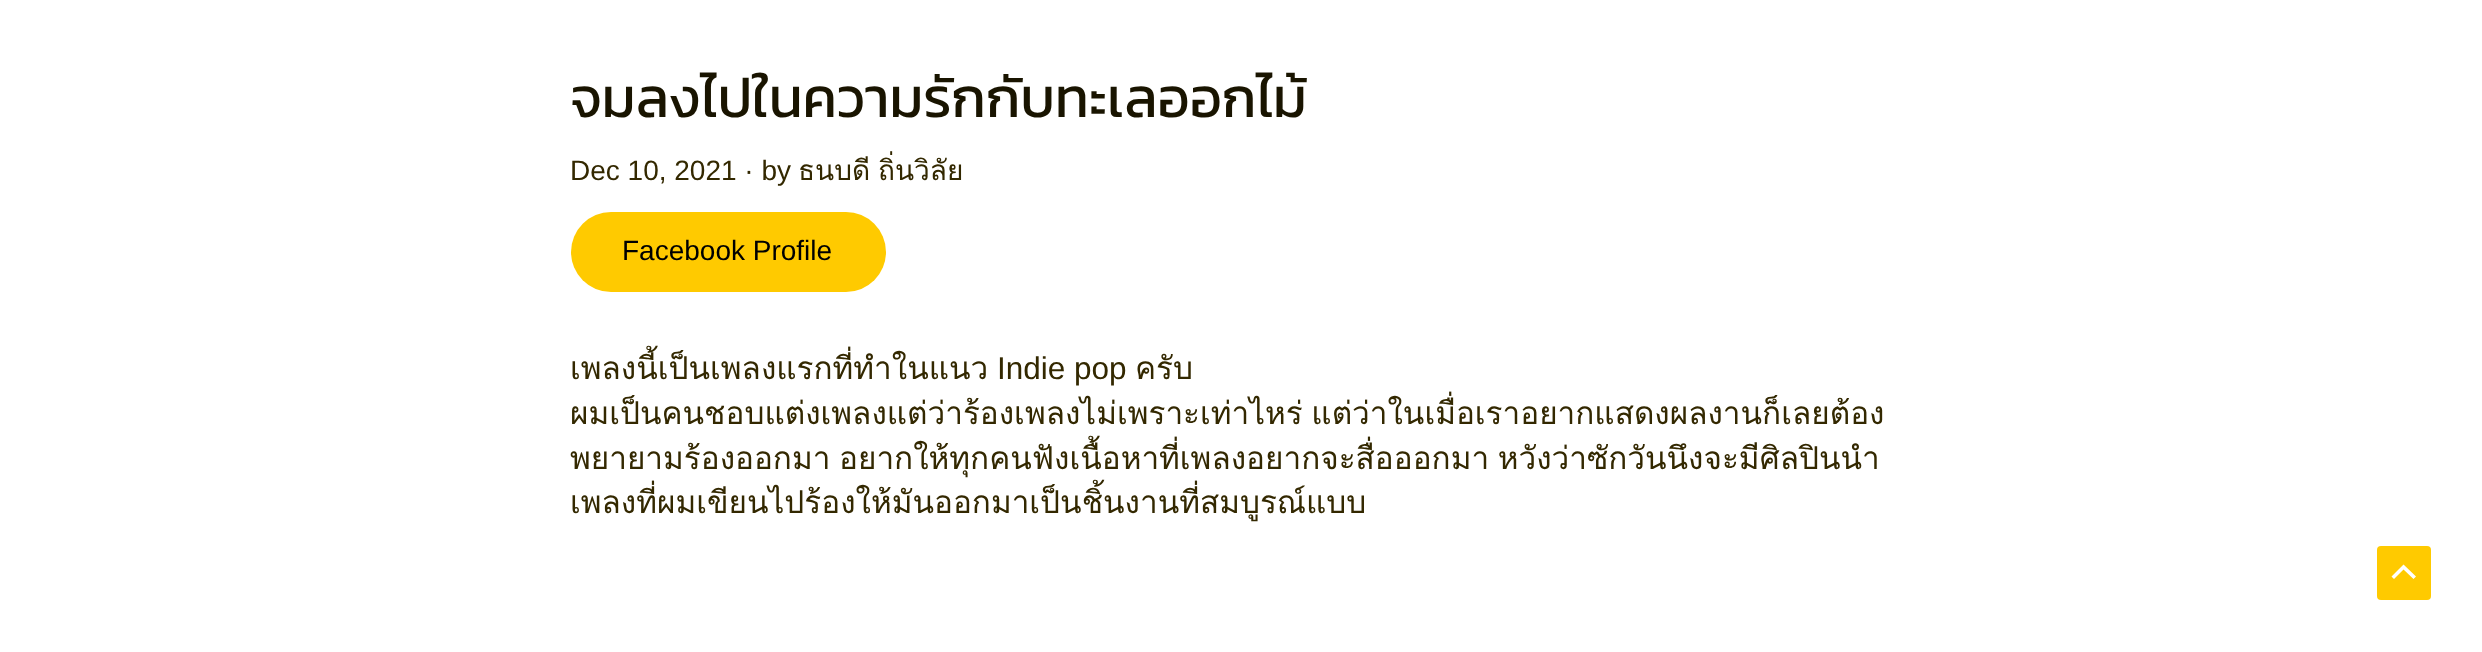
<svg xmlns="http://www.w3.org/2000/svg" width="2482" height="652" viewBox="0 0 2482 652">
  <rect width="100%" height="100%" fill="#ffffff"/>
  <text x="570" y="117" font-family="Kanit" font-size="56" fill="#191400">จมลงไปในความรักกับทะเลออกไม้</text>
  <text x="570" y="180" font-family="Liberation Sans" font-size="28" fill="#332800">Dec 10, 2021 · by</text>
  <text x="798" y="180" font-family="Loma" font-size="28" fill="#332800">ธนบดี</text>
  <text x="878" y="180" font-family="Loma" font-size="28" fill="#332800">ถิ่นวิลัย</text>
  <rect x="571" y="212" width="315" height="80" rx="40" fill="#ffca00"/>
  <text x="622" y="260" font-family="Liberation Sans" font-size="28" fill="#000000">Facebook Profile</text>
  <text x="570" y="379" font-family="Loma" font-size="31.5" fill="#332800">เพลงนี้เป็นเพลงแรกที่ทำในแนว</text>
  <text x="997" y="379" font-family="Liberation Sans" font-size="31.5" fill="#332800">Indie pop</text>
  <text x="1135" y="379" font-family="Loma" font-size="31.5" fill="#332800">ครับ</text>
  <text x="570" y="424" word-spacing="-2" font-family="Loma" font-size="31.5" fill="#332800">ผมเป็นคนชอบแต่งเพลงแต่ว่าร้องเพลงไม่เพราะเท่าไหร่ แต่ว่าในเมื่อเราอยากแสดงผลงานก็เลยต้อง</text>
  <text x="570" y="469" word-spacing="-2" font-family="Loma" font-size="31.5" fill="#332800">พยายามร้องออกมา อยากให้ทุกคนฟังเนื้อหาที่เพลงอยากจะสื่อออกมา หวังว่าซักวันนึงจะมีศิลปินนำ</text>
  <text x="570" y="513" font-family="Loma" font-size="31.5" fill="#332800">เพลงที่ผมเขียนไปร้องให้มันออกมาเป็นชิ้นงานที่สมบูรณ์แบบ</text>
  <rect x="2377" y="546" width="54" height="54" rx="4" fill="#ffca00"/>
  <path d="M2416 576.5L2403.5 564.5L2391.5 576.5L2394 579L2403.5 569.5L2413.5 579Z" fill="#ffffff"/>
</svg>
